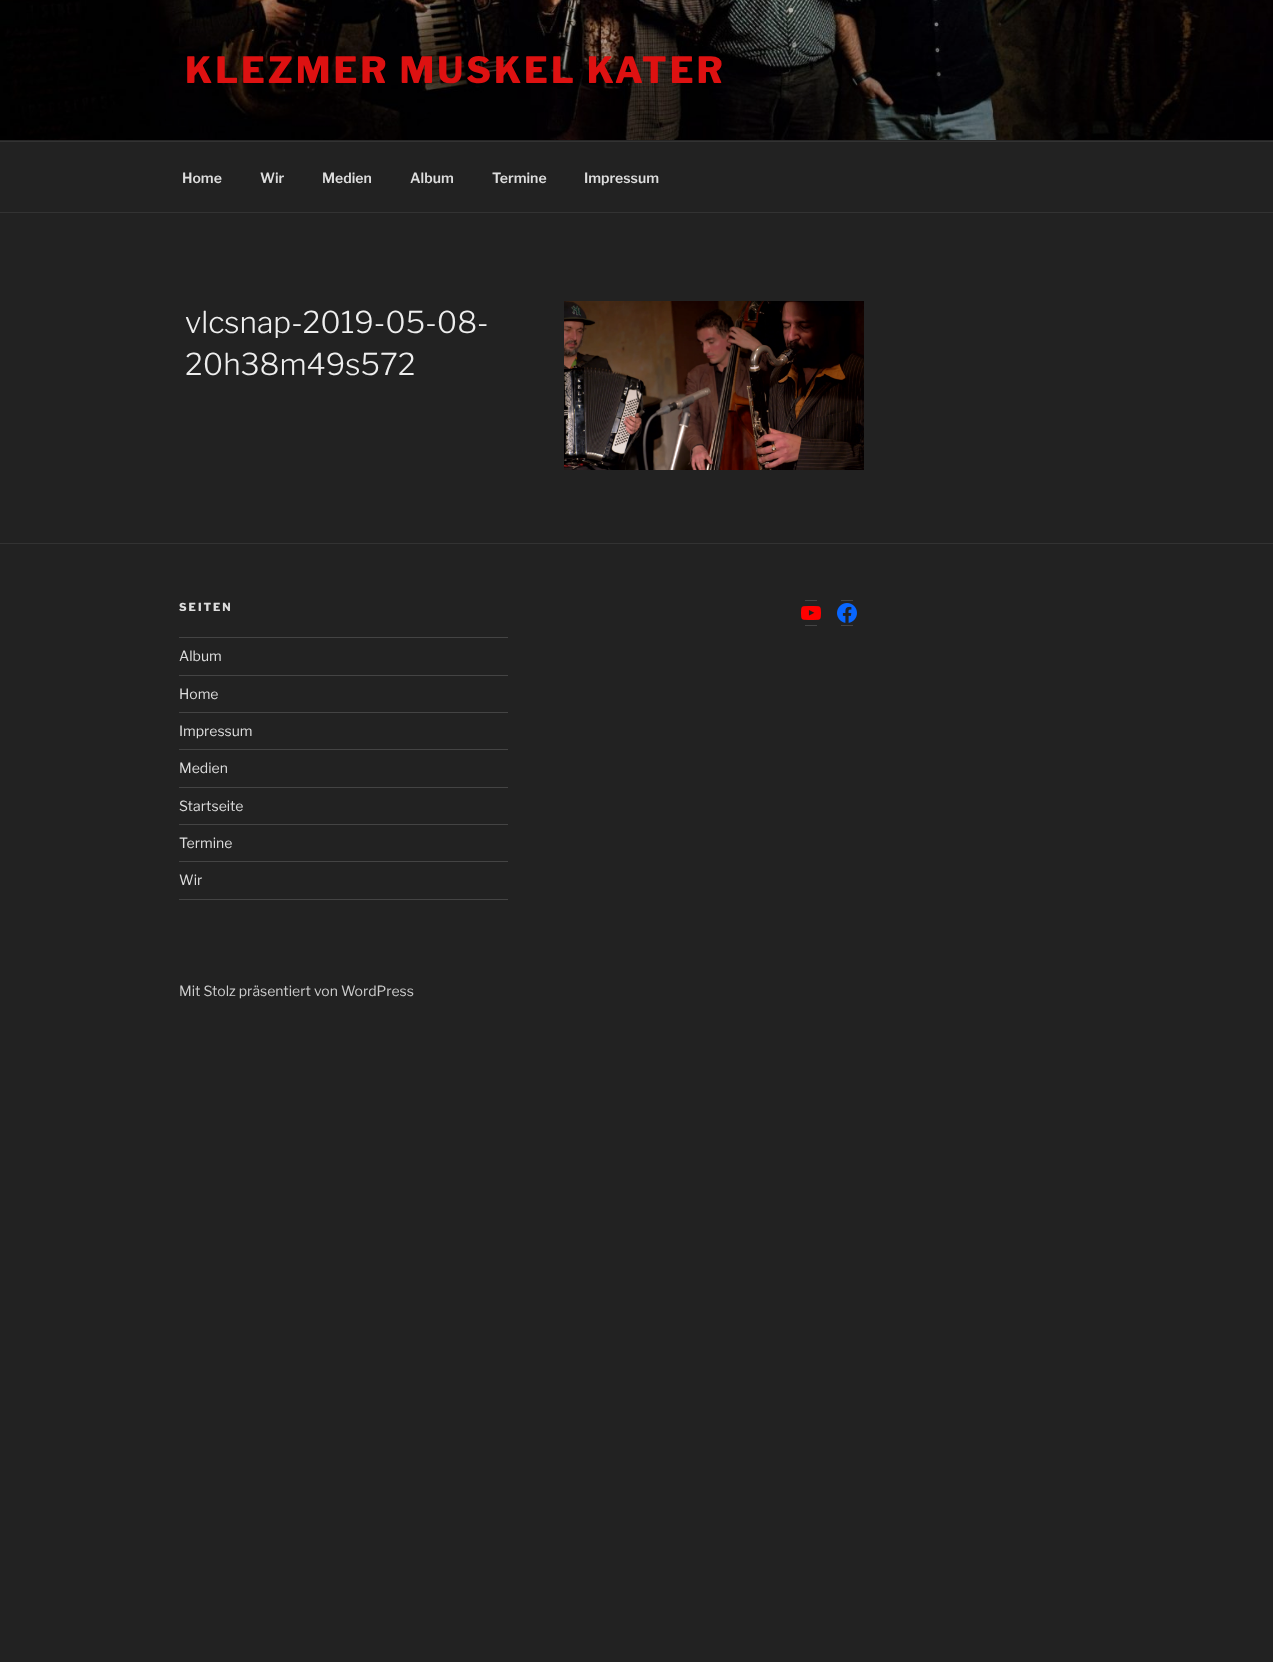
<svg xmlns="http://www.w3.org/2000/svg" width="1273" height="1662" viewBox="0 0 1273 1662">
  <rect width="100%" height="100%" fill="#222222"/>
  <rect x="0" y="140" width="1273" height="1" fill="#262626"/>
  <image x="0" y="0" width="1273" height="140" href="img1.png"/>
  <text x="185" y="83" font-family="'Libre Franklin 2'" font-size="36" font-weight="100" letter-spacing="2.9" fill="#dd1111">KLEZMER MUSKEL KATER</text>
  <rect x="0" y="141" width="1273" height="1" fill="#333333"/>
  <rect x="0" y="212" width="1273" height="1" fill="#333333"/>
  <text x="182" y="183" font-family="'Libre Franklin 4'" font-size="14" font-weight="100" fill="#dddddd">Home</text>
  <text x="260" y="183" font-family="'Libre Franklin 4'" font-size="14" font-weight="100" fill="#dddddd">Wir</text>
  <text x="322" y="183" font-family="'Libre Franklin 4'" font-size="14" font-weight="100" fill="#dddddd">Medien</text>
  <text x="410" y="183" font-family="'Libre Franklin 4'" font-size="14" font-weight="100" fill="#dddddd">Album</text>
  <text x="492" y="183" font-family="'Libre Franklin 4'" font-size="14" font-weight="100" fill="#dddddd">Termine</text>
  <text x="584" y="183" font-family="'Libre Franklin 4'" font-size="14" font-weight="100" fill="#dddddd">Impressum</text>
  <text x="185" y="333" font-family="Libre Franklin" font-size="30" font-weight="100" fill="#eeeeee">vlcsnap-2019-05-08-</text>
  <text x="185" y="375" font-family="Libre Franklin" font-size="30" font-weight="100" fill="#eeeeee">20h38m49s572</text>
  <image x="564" y="301" width="300" height="169" href="img2.png"/>
  <rect x="0" y="543" width="1273" height="1" fill="#333333"/>
  <text x="179" y="611" font-family="'Libre Franklin 2'" font-size="11" font-weight="100" letter-spacing="2" fill="#dddddd">SEITEN</text>
  <rect x="179" y="637" width="329" height="1" fill="#444444"/>
  <rect x="179" y="675" width="329" height="1" fill="#444444"/>
  <text x="179" y="661" font-family="'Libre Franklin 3'" font-size="14" font-weight="100" fill="#dddddd">Album</text>
  <rect x="179" y="712" width="329" height="1" fill="#444444"/>
  <text x="179" y="699" font-family="'Libre Franklin 3'" font-size="14" font-weight="100" fill="#dddddd">Home</text>
  <rect x="179" y="749" width="329" height="1" fill="#444444"/>
  <text x="179" y="736" font-family="'Libre Franklin 3'" font-size="14" font-weight="100" fill="#dddddd">Impressum</text>
  <rect x="179" y="787" width="329" height="1" fill="#444444"/>
  <text x="179" y="773" font-family="'Libre Franklin 3'" font-size="14" font-weight="100" fill="#dddddd">Medien</text>
  <rect x="179" y="824" width="329" height="1" fill="#444444"/>
  <text x="179" y="811" font-family="'Libre Franklin 3'" font-size="14" font-weight="100" fill="#dddddd">Startseite</text>
  <rect x="179" y="861" width="329" height="1" fill="#444444"/>
  <text x="179" y="848" font-family="'Libre Franklin 3'" font-size="14" font-weight="100" fill="#dddddd">Termine</text>
  <rect x="179" y="899" width="329" height="1" fill="#444444"/>
  <text x="179" y="885" font-family="'Libre Franklin 3'" font-size="14" font-weight="100" fill="#dddddd">Wir</text>
  <rect x="805" y="600" width="12" height="1" fill="#444444"/>
  <rect x="805" y="625" width="12" height="1" fill="#444444"/>
  <image x="801" y="606" width="20" height="14" href="img3.png"/>
  <rect x="841" y="600" width="12" height="1" fill="#444444"/>
  <rect x="841" y="625" width="12" height="1" fill="#444444"/>
  <image x="837" y="603" width="20" height="20" href="img4.png"/>
  <text x="179" y="996" font-family="'Libre Franklin 3'" font-size="14" font-weight="100" fill="#cccccc">Mit Stolz präsentiert von WordPress</text>
</svg>
